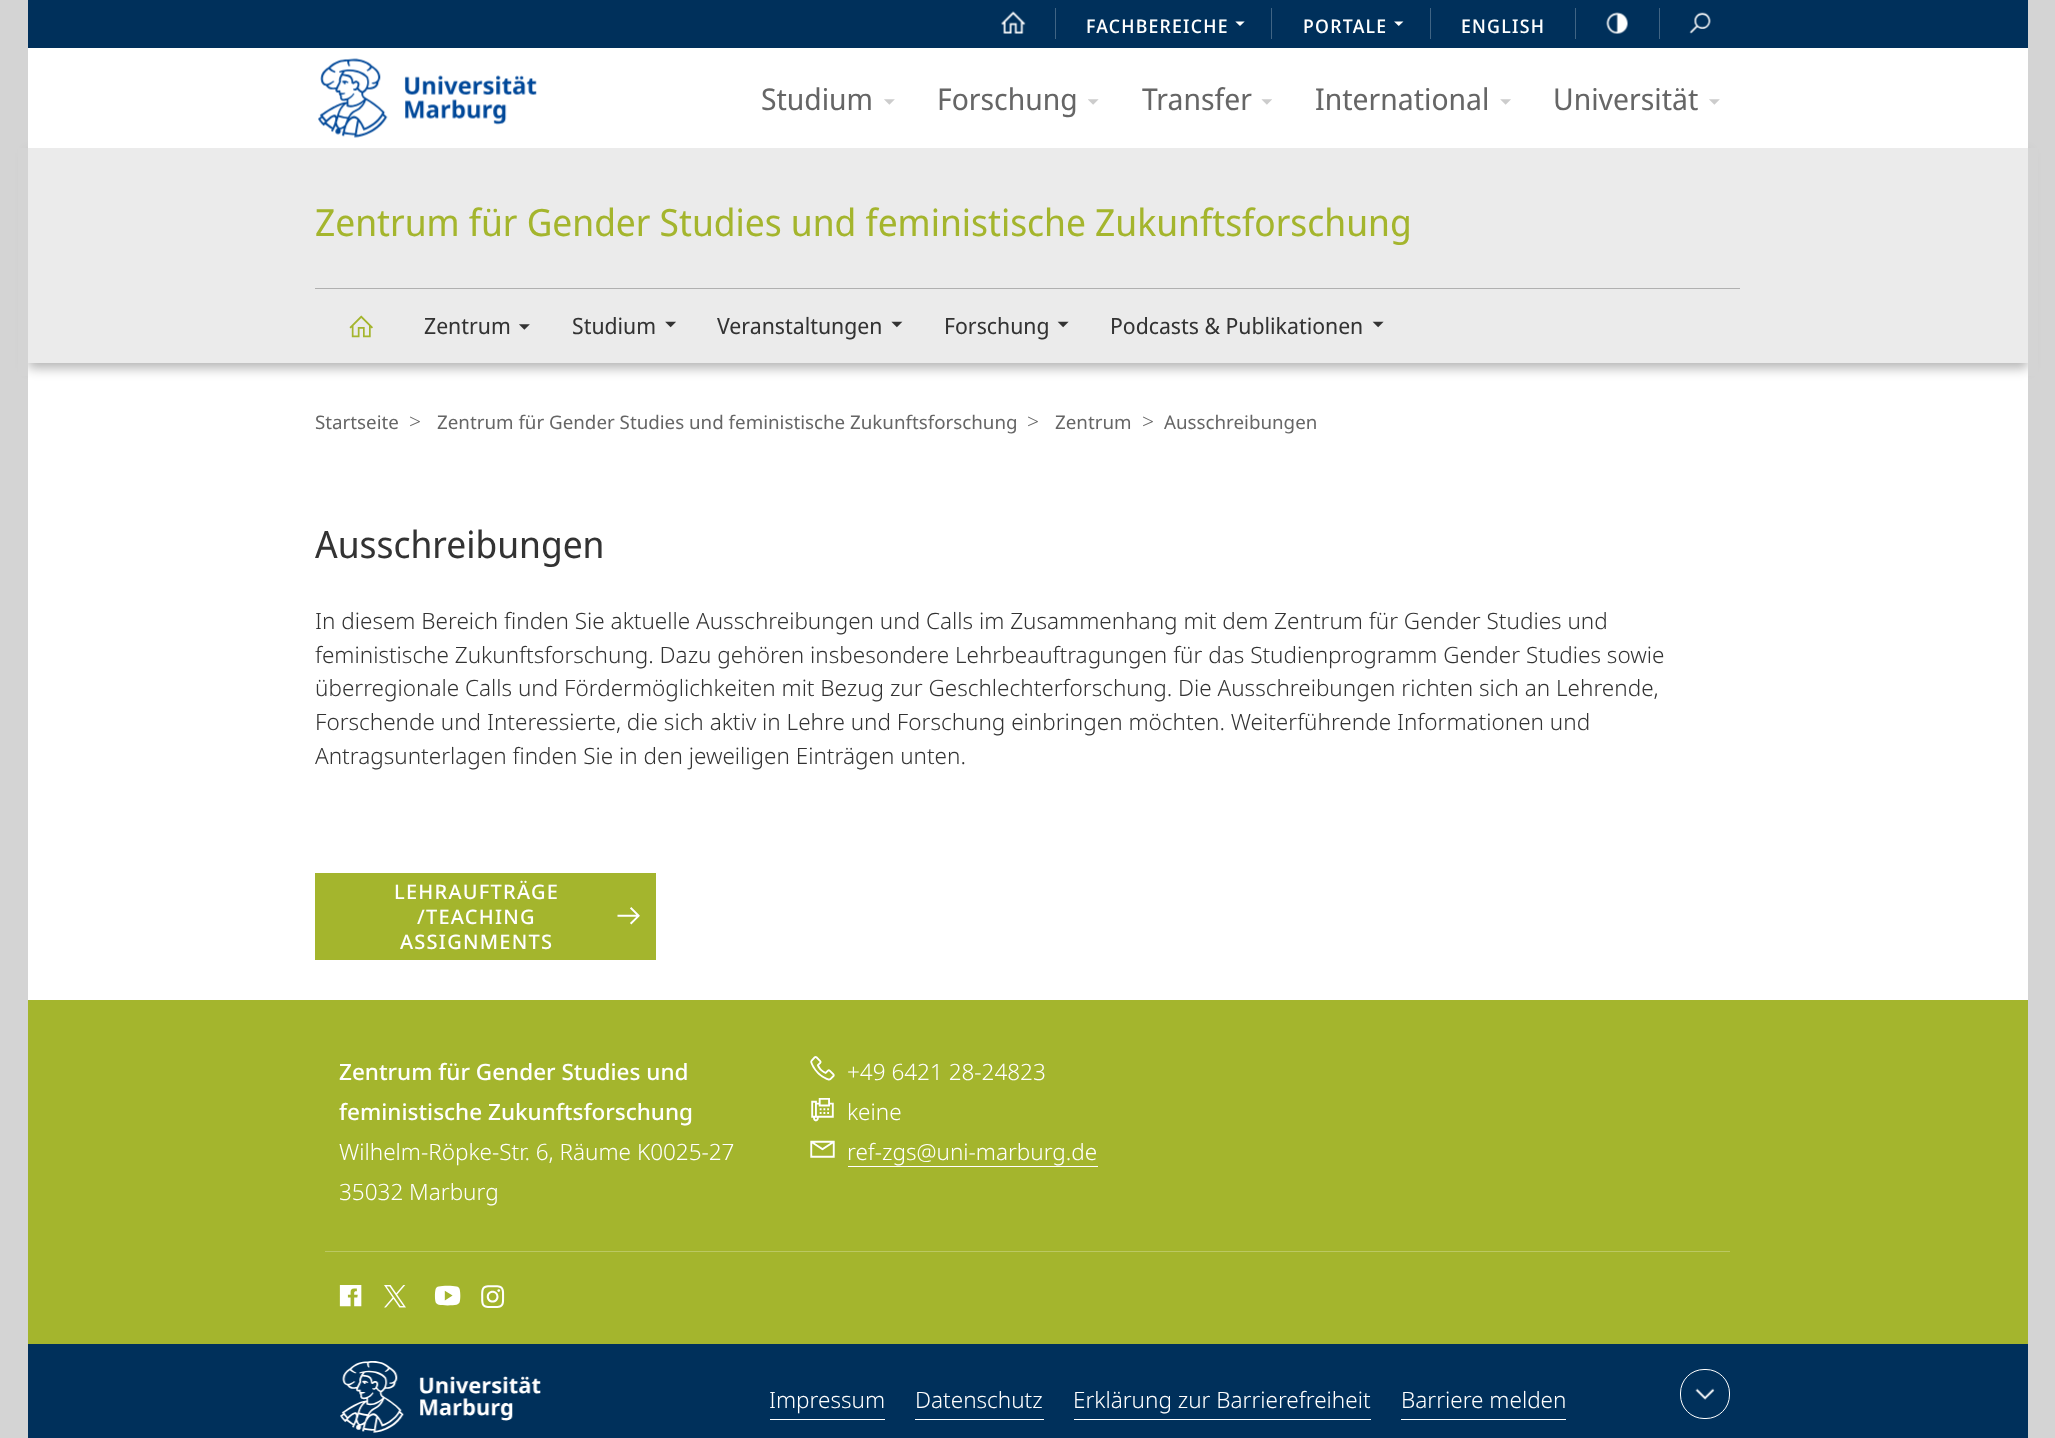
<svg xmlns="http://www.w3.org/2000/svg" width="2055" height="1438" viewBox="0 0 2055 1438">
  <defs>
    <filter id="blur1" x="-50%" y="-200%" width="200%" height="500%"><feGaussianBlur stdDeviation="6"/></filter>
  </defs>
  <rect width="100%" height="100%" fill="#d4d4d4"/>
  <rect x="28" y="0" width="2000" height="48" fill="#00305b"/>
  <image x="1001" y="11" width="25" height="23" href="img1.png"/>
  <rect x="1055" y="8" width="1" height="31" fill="#406484"/>
  <text x="1086" y="33" font-family="Noto Sans Display" font-size="18.75" font-weight="500" letter-spacing="1.25" fill="#ffffff">FACHBEREICHE</text>
  <image x="1235" y="21" width="10" height="5" href="img2.png"/>
  <rect x="1271" y="8" width="1" height="31" fill="#406484"/>
  <text x="1303" y="33" font-family="Noto Sans Display" font-size="18.75" font-weight="500" letter-spacing="1.25" fill="#ffffff">PORTALE</text>
  <image x="1394" y="21" width="10" height="5" href="img3.png"/>
  <rect x="1430" y="8" width="1" height="31" fill="#406484"/>
  <text x="1461" y="33" font-family="Noto Sans Display" font-size="18.75" font-weight="500" letter-spacing="1.25" fill="#ffffff">ENGLISH</text>
  <rect x="1575" y="8" width="1" height="31" fill="#406484"/>
  <image x="1606" y="12" width="22" height="22" href="img4.png"/>
  <rect x="1659" y="8" width="1" height="31" fill="#406484"/>
  <image x="1689" y="12" width="22" height="22" href="img5.png"/>
  <rect x="28" y="363" width="2000" height="637" fill="#ffffff"/>
  <rect x="28" y="153" width="2000" height="215" fill="#000000" fill-opacity="0.3" filter="url(#blur1)"/>
  <rect x="28" y="48" width="2000" height="100" fill="#ffffff"/>
  <image x="318" y="58" width="219" height="80" href="img6.png"/>
  <text x="761" y="110" font-family="Noto Sans Display" font-size="30" fill="#666666">Studium</text>
  <image x="884" y="99" width="11" height="6" href="img7.png"/>
  <text x="937" y="110" font-family="Noto Sans Display" font-size="30" fill="#666666">Forschung</text>
  <image x="1088" y="99" width="11" height="6" href="img8.png"/>
  <text x="1142" y="110" font-family="Noto Sans Display" font-size="30" fill="#666666">Transfer</text>
  <image x="1261" y="99" width="11" height="6" href="img9.png"/>
  <text x="1315" y="110" font-family="Noto Sans Display" font-size="30" fill="#666666">International</text>
  <image x="1500" y="99" width="11" height="6" href="img10.png"/>
  <text x="1553" y="110" font-family="Noto Sans Display" font-size="30" fill="#666666">Universität</text>
  <image x="1709" y="99" width="11" height="6" href="img7.png"/>
  <rect x="28" y="148" width="2000" height="215" fill="#ebebeb"/>
  <rect x="18" y="148" width="10" height="228" fill="#d4d4d4"/>
  <text x="315" y="236" font-family="Noto Sans Display" font-size="37.5" fill="#a4b52d">Zentrum für Gender Studies und feministische Zukunftsforschung</text>
  <rect x="315" y="288" width="1425" height="1" fill="#b0b0b0"/>
  <image x="349" y="315" width="24" height="23" href="img11.png"/>
  <text x="424" y="334" font-family="Noto Sans Display" font-size="22.5" fill="#333333">Zentrum</text>
  <image x="519" y="324" width="11" height="6" href="img12.png"/>
  <text x="572" y="334" font-family="Noto Sans Display" font-size="22.5" fill="#333333">Studium</text>
  <image x="665" y="321" width="11" height="7" href="img13.png"/>
  <text x="717" y="334" font-family="Noto Sans Display" font-size="22.5" fill="#333333">Veranstaltungen</text>
  <image x="891" y="321" width="12" height="7" href="img14.png"/>
  <text x="944" y="334" font-family="Noto Sans Display" font-size="22.5" fill="#333333">Forschung</text>
  <image x="1057" y="321" width="12" height="7" href="img15.png"/>
  <text x="1110" y="334" font-family="Noto Sans Display" font-size="22.5" fill="#333333">Podcasts &amp; Publikationen</text>
  <image x="1372" y="321" width="12" height="7" href="img15.png"/>
  <rect x="2028" y="148" width="10" height="228" fill="#d4d4d4"/>
  <text x="315" y="429" font-family="Noto Sans" font-size="18.75" fill="#666666">Startseite</text>
  <text x="409" y="429" font-family="Noto Sans" font-size="21" font-weight="300" fill="#666666">&gt;</text>
  <text x="437" y="429" font-family="Noto Sans" font-size="18.75" fill="#666666">Zentrum für Gender Studies und feministische Zukunftsforschung</text>
  <text x="1027" y="429" font-family="Noto Sans" font-size="21" font-weight="300" fill="#666666">&gt;</text>
  <text x="1055" y="429" font-family="Noto Sans" font-size="18.75" fill="#666666">Zentrum</text>
  <text x="1142" y="429" font-family="Noto Sans" font-size="21" font-weight="300" fill="#666666">&gt;</text>
  <text x="1164" y="429" font-family="Noto Sans" font-size="18.75" fill="#666666">Ausschreibungen</text>
  <text x="315" y="558" font-family="Noto Sans Display" font-size="37.5" fill="#333333">Ausschreibungen</text>
  <text x="315" y="629" font-family="Noto Sans" font-size="22.5" font-weight="300" fill="#333333">In diesem Bereich finden Sie aktuelle Ausschreibungen und Calls im Zusammenhang mit dem Zentrum für Gender Studies und</text>
  <text x="315" y="663" font-family="Noto Sans" font-size="22.5" font-weight="300" fill="#333333">feministische Zukunftsforschung. Dazu gehören insbesondere Lehrbeauftragungen für das Studienprogramm Gender Studies sowie</text>
  <text x="315" y="696" font-family="Noto Sans" font-size="22.5" font-weight="300" fill="#333333">überregionale Calls und Fördermöglichkeiten mit Bezug zur Geschlechterforschung. Die Ausschreibungen richten sich an Lehrende,</text>
  <text x="315" y="730" font-family="Noto Sans" font-size="22.5" font-weight="300" fill="#333333">Forschende und Interessierte, die sich aktiv in Lehre und Forschung einbringen möchten. Weiterführende Informationen und</text>
  <text x="315" y="764" font-family="Noto Sans" font-size="22.5" font-weight="300" fill="#333333">Antragsunterlagen finden Sie in den jeweiligen Einträgen unten.</text>
  <rect x="315" y="873" width="341" height="87" fill="#a4b52d"/>
  <text x="394" y="899" font-family="Noto Sans" font-size="20" font-weight="500" letter-spacing="1.25" fill="#ffffff">LEHRAUFTRÄGE</text>
  <text x="417" y="924" font-family="Noto Sans" font-size="20" font-weight="500" letter-spacing="1.25" fill="#ffffff">/TEACHING</text>
  <text x="400" y="949" font-family="Noto Sans" font-size="20" font-weight="500" letter-spacing="1.25" fill="#ffffff">ASSIGNMENTS</text>
  <image x="617" y="907" width="23" height="18" href="img16.png"/>
  <rect x="28" y="1000" width="2000" height="344" fill="#a4b52d"/>
  <text x="339" y="1080" font-family="Noto Sans" font-size="22.5" font-weight="500" fill="#ffffff">Zentrum für Gender Studies und</text>
  <text x="339" y="1120" font-family="Noto Sans" font-size="22.5" font-weight="500" fill="#ffffff">feministische Zukunftsforschung</text>
  <text x="339" y="1160" font-family="Noto Sans" font-size="22.5" font-weight="300" fill="#ffffff">Wilhelm-Röpke-Str. 6, Räume K0025-27</text>
  <text x="339" y="1200" font-family="Noto Sans" font-size="22.5" font-weight="300" fill="#ffffff">35032 Marburg</text>
  <image x="810" y="1056" width="25" height="25" href="img17.png"/>
  <text x="847" y="1080" font-family="Noto Sans" font-size="22.5" font-weight="300" fill="#ffffff">+49 6421 28-24823</text>
  <image x="811" y="1098" width="23" height="24" href="img18.png"/>
  <text x="847" y="1120" font-family="Noto Sans" font-size="22.5" font-weight="300" fill="#ffffff">keine</text>
  <image x="810" y="1140" width="25" height="18" href="img19.png"/>
  <text x="847" y="1160" font-family="Noto Sans" font-size="22.5" font-weight="300" fill="#ffffff">ref-zgs@uni-marburg.de</text>
  <rect x="848" y="1166" width="250" height="1" fill="#ffffff"/>
  <rect x="325" y="1251" width="1405" height="1" fill="#bbc862"/>
  <image x="339" y="1285" width="23" height="22" href="img20.png"/>
  <image x="384" y="1285" width="22" height="23" href="img21.png"/>
  <image x="434" y="1285" width="27" height="21" href="img22.png"/>
  <image x="481" y="1285" width="24" height="23" href="img23.png"/>
  <rect x="28" y="1344" width="2000" height="94" fill="#00305b"/>
  <image x="340" y="1361" width="201" height="72" href="img24.png"/>
  <rect x="770" y="1419" width="115" height="1" fill="#ffffff"/>
  <text x="769" y="1408" font-family="Noto Sans" font-size="22.5" font-weight="300" fill="#ffffff">Impressum</text>
  <rect x="915" y="1419" width="129" height="1" fill="#ffffff"/>
  <text x="915" y="1408" font-family="Noto Sans" font-size="22.5" font-weight="300" fill="#ffffff">Datenschutz</text>
  <rect x="1074" y="1419" width="297" height="1" fill="#ffffff"/>
  <text x="1073" y="1408" font-family="Noto Sans" font-size="22.5" font-weight="300" fill="#ffffff">Erklärung zur Barrierefreiheit</text>
  <rect x="1401" y="1419" width="165" height="1" fill="#ffffff"/>
  <text x="1401" y="1408" font-family="Noto Sans" font-size="22.5" font-weight="300" fill="#ffffff">Barriere melden</text>
  <rect x="1680.5" y="1369.5" width="49" height="49" rx="23.5" fill="none" stroke="#ffffff"/>
  <image x="1695" y="1388" width="20" height="12" href="img25.png"/>
</svg>
